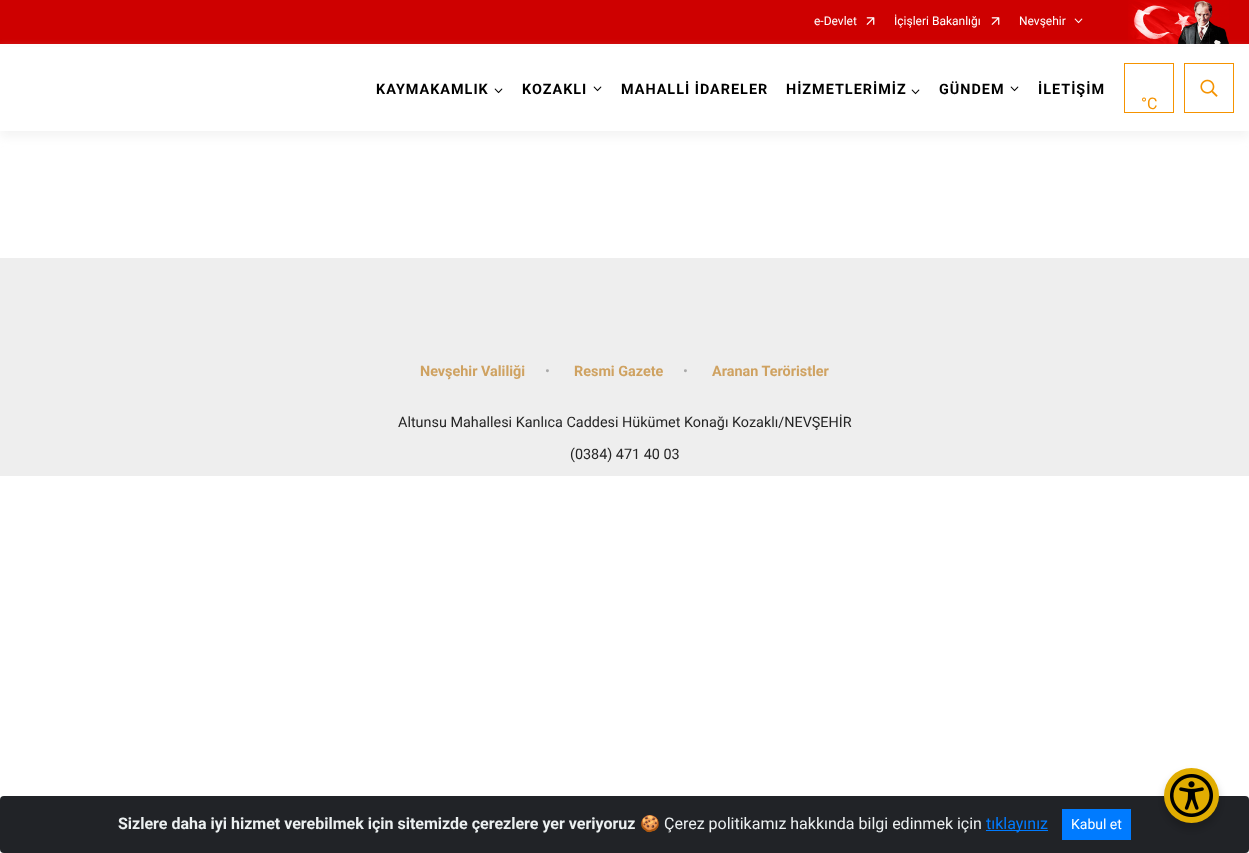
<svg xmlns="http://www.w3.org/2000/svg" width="1249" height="853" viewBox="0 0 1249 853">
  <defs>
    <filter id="blur1" x="-50%" y="-200%" width="200%" height="500%"><feGaussianBlur stdDeviation="5"/></filter>
    <filter id="blur2" x="-50%" y="-200%" width="200%" height="500%"><feGaussianBlur stdDeviation="4"/></filter>
  </defs>
  <rect width="100%" height="100%" fill="#ffffff"/>
  <rect x="0" y="0" width="1249" height="44" fill="#ce0000"/>
  <text x="814" y="25" font-family="Roboto" font-size="12" fill="#ffffff">e-Devlet</text>
  <image x="866" y="17" width="9" height="8" href="img1.png"/>
  <text x="894" y="25" font-family="Roboto" font-size="12" fill="#ffffff">İçişleri Bakanlığı</text>
  <image x="991" y="17" width="9" height="8" href="img1.png"/>
  <text x="1019" y="25" font-family="Roboto" font-size="12" fill="#ffffff">Nevşehir</text>
  <image x="1074" y="18" width="9" height="6" href="img2.png"/>
  <image x="1128" y="0" width="101" height="44" href="img3.png"/>
  <rect x="0" y="50" width="1249" height="87" fill="#eeeeee" fill-opacity="0.62" filter="url(#blur1)"/>
  <rect x="0" y="47" width="1249" height="84" fill="#ffffff"/>
  <text x="376" y="94" font-family="Roboto" font-size="14.4" font-weight="bold" letter-spacing="1" fill="#000000">KAYMAKAMLIK</text>
  <image x="494" y="88" width="9" height="6" href="img4.png"/>
  <text x="522" y="94" font-family="Roboto" font-size="14.4" font-weight="bold" letter-spacing="1" fill="#000000">KOZAKLI</text>
  <image x="593" y="86" width="9" height="6" href="img4.png"/>
  <text x="621" y="94" font-family="Roboto" font-size="14.4" font-weight="bold" letter-spacing="1" fill="#000000">MAHALLİ İDARELER</text>
  <text x="786" y="94" font-family="Roboto" font-size="14.4" font-weight="bold" letter-spacing="1" fill="#000000">HİZMETLERİMİZ</text>
  <image x="911" y="89" width="9" height="6" href="img4.png"/>
  <text x="939" y="94" font-family="Roboto" font-size="14.4" font-weight="bold" letter-spacing="1" fill="#000000">GÜNDEM</text>
  <image x="1010" y="86" width="9" height="6" href="img4.png"/>
  <text x="1038" y="94" font-family="Roboto" font-size="14.4" font-weight="bold" letter-spacing="1" fill="#000000">İLETİŞİM</text>
  <rect x="1124.5" y="63.5" width="49" height="49" fill="none" stroke="#f59300"/>
  <text x="1141" y="109" font-family="Roboto" font-size="16" fill="#f59300">°C</text>
  <rect x="1184.5" y="63.5" width="49" height="49" fill="none" stroke="#f59300"/>
  <image x="1200" y="79" width="18" height="18" href="img5.png"/>
  <rect x="0" y="258" width="1249" height="218" fill="#eeeeee"/>
  <text x="420" y="376" font-family="Roboto" font-size="14.4" font-weight="bold" fill="#cfa261">Nevşehir Valiliği</text>
  <text x="545" y="376" font-family="Roboto" font-size="14.4" fill="#aaaaaa">•</text>
  <text x="574" y="376" font-family="Roboto" font-size="14.4" font-weight="bold" fill="#cfa261">Resmi Gazete</text>
  <text x="683" y="376" font-family="Roboto" font-size="14.4" fill="#aaaaaa">•</text>
  <text x="712" y="376" font-family="Roboto" font-size="14.4" font-weight="bold" fill="#cfa261">Aranan Teröristler</text>
  <text x="398" y="427" font-family="Roboto" font-size="14.4" fill="#252525">Altunsu Mahallesi Kanlıca Caddesi Hükümet Konağı Kozaklı/NEVŞEHİR</text>
  <text x="570" y="459" font-family="Roboto" font-size="14.4" fill="#252525">(0384) 471 40 03</text>
  <rect x="0" y="796" width="1249" height="57" rx="4" fill="#212327"/>
  <text x="118" y="829" font-family="Roboto" font-size="16" font-weight="bold" fill="#ecf0f1">Sizlere daha iyi hizmet verebilmek için sitemizde çerezlere yer veriyoruz</text>
  <text x="640" y="829" font-family="Noto Color Emoji" font-size="16" fill="#ecf0f1">🍪</text>
  <text x="664" y="829" font-family="Roboto" font-size="16" fill="#ecf0f1">Çerez politikamız hakkında bilgi edinmek için</text>
  <rect x="986" y="830" width="62" height="1" fill="#007bff"/>
  <text x="986" y="829" font-family="Roboto" font-size="16" fill="#007bff">tıklayınız</text>
  <rect x="1062" y="809" width="69" height="31" fill="#007bff"/>
  <text x="1071" y="829" font-family="Roboto" font-size="14" fill="#ffffff">Kabul et</text>
  <rect x="1164" y="774" width="55" height="55" rx="27.5" fill="#000000" fill-opacity="0.2" filter="url(#blur2)"/>
  <circle cx="1191.5" cy="795.5" r="27.5" fill="#e1ad01"/>
  <image x="1170" y="774" width="43" height="43" href="img6.png"/>
</svg>
